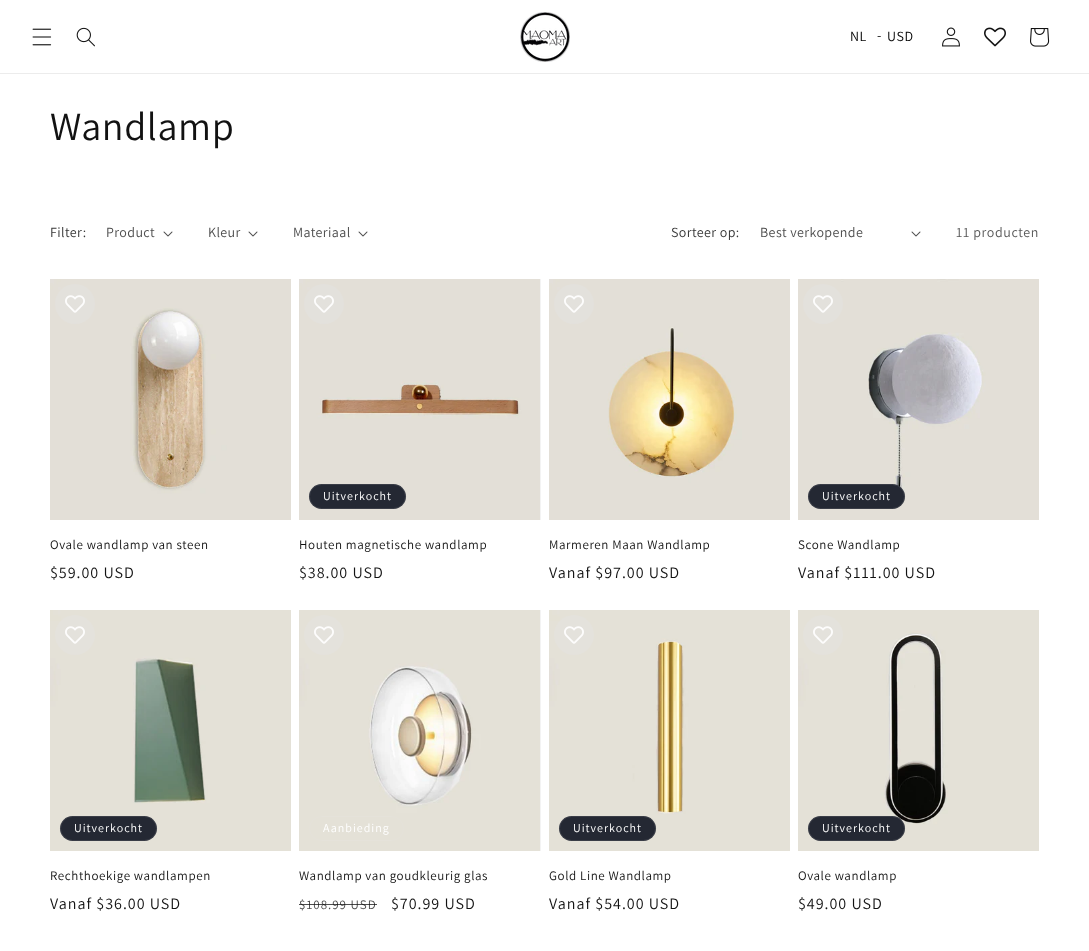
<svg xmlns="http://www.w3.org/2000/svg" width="1089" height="951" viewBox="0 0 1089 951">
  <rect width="100%" height="100%" fill="#ffffff"/>
  <rect x="0" y="73" width="1089" height="1" fill="#ececec"/>
  <image x="32" y="28" width="20" height="18" href="img1.png"/>
  <image x="76" y="27" width="19" height="20" href="img2.png"/>
  <image x="520" y="12" width="50" height="50" href="img3.png"/>
  <text x="850" y="41" font-family="Assistant" font-size="14" letter-spacing="0.6" fill="#000000">NL</text>
  <text x="877" y="40" font-family="Assistant" font-size="14" letter-spacing="0.6" fill="#000000">-</text>
  <text x="887" y="41" font-family="Assistant" font-size="14" letter-spacing="0.6" fill="#000000">USD</text>
  <image x="942" y="27" width="18" height="20" href="img4.png"/>
  <image x="984" y="27" width="22" height="20" href="img5.png"/>
  <image x="1030" y="28" width="20" height="19" href="img6.png"/>
  <text x="50" y="140" font-family="Assistant" font-size="40" letter-spacing="0.6" fill="#121212">Wandlamp</text>
  <text x="50" y="237" font-family="Assistant" font-size="14" letter-spacing="0.4" fill="#363636">Filter:</text>
  <text x="106" y="237" font-family="Assistant" font-size="14" letter-spacing="0.4" fill="#4d4d4d">Product</text>
  <image x="163" y="231" width="10" height="6" href="img7.png"/>
  <text x="208" y="237" font-family="Assistant" font-size="14" letter-spacing="0.4" fill="#4d4d4d">Kleur</text>
  <image x="248" y="231" width="10" height="6" href="img7.png"/>
  <text x="293" y="237" font-family="Assistant" font-size="14" letter-spacing="0.4" fill="#4d4d4d">Materiaal</text>
  <image x="358" y="231" width="10" height="6" href="img7.png"/>
  <text x="671" y="237" font-family="Assistant" font-size="14" letter-spacing="0.4" fill="#363636">Sorteer op:</text>
  <text x="760" y="237" font-family="Assistant" font-size="14" letter-spacing="0.4" fill="#4d4d4d">Best verkopende</text>
  <image x="911" y="231" width="10" height="6" href="img7.png"/>
  <text x="956" y="237" font-family="Assistant" font-size="14" letter-spacing="0.6" fill="#595959">11 producten</text>
  <image x="50" y="279" width="241" height="241" href="img9.png"/>
  <circle cx="75" cy="304" r="20" fill="#e3e1dc"/>
  <image x="65" y="295" width="20" height="18" href="img8.png"/>
  <text x="50" y="549" font-family="Assistant" font-size="13" letter-spacing="0.6" fill="#121212">Ovale wandlamp van steen</text>
  <text x="50" y="578" font-family="Assistant" font-size="16" letter-spacing="1" fill="#121212">$59.00 USD</text>
  <image x="299" y="279" width="241" height="241" href="img10.png"/>
  <circle cx="324" cy="304" r="20" fill="#e3e1dc"/>
  <image x="314" y="295" width="20" height="18" href="img8.png"/>
  <rect x="540" y="279" width="1" height="241" fill="#f3f3f3"/>
  <rect x="309" y="484" width="97" height="25" rx="12.5" fill="#242833"/>
  <rect x="309.5" y="484.5" width="96" height="24" rx="12" fill="none" stroke="#ffffff" stroke-opacity="0.1"/>
  <text x="323" y="500" font-family="Assistant" font-size="12" letter-spacing="1" fill="#ffffff">Uitverkocht</text>
  <text x="299" y="549" font-family="Assistant" font-size="13" letter-spacing="0.6" fill="#121212">Houten magnetische wandlamp</text>
  <text x="299" y="578" font-family="Assistant" font-size="16" letter-spacing="1" fill="#121212">$38.00 USD</text>
  <image x="549" y="279" width="241" height="241" href="img11.png"/>
  <circle cx="574" cy="304" r="20" fill="#e3e1dc"/>
  <image x="564" y="295" width="20" height="18" href="img8.png"/>
  <text x="549" y="549" font-family="Assistant" font-size="13" letter-spacing="0.6" fill="#121212">Marmeren Maan Wandlamp</text>
  <text x="549" y="578" font-family="Assistant" font-size="16" letter-spacing="1" fill="#121212">Vanaf $97.00 USD</text>
  <image x="798" y="279" width="241" height="241" href="img12.png"/>
  <circle cx="823" cy="304" r="20" fill="#e3e1dc"/>
  <image x="813" y="295" width="20" height="18" href="img8.png"/>
  <rect x="808" y="484" width="97" height="25" rx="12.5" fill="#242833"/>
  <rect x="808.5" y="484.5" width="96" height="24" rx="12" fill="none" stroke="#ffffff" stroke-opacity="0.1"/>
  <text x="822" y="500" font-family="Assistant" font-size="12" letter-spacing="1" fill="#ffffff">Uitverkocht</text>
  <text x="798" y="549" font-family="Assistant" font-size="13" letter-spacing="0.6" fill="#121212">Scone Wandlamp</text>
  <text x="798" y="578" font-family="Assistant" font-size="16" letter-spacing="1" fill="#121212">Vanaf $111.00 USD</text>
  <image x="50" y="610" width="241" height="241" href="img14.png"/>
  <circle cx="75" cy="635" r="20" fill="#e4e2dc"/>
  <image x="65" y="626" width="20" height="18" href="img13.png"/>
  <rect x="60" y="816" width="97" height="25" rx="12.5" fill="#242833"/>
  <rect x="60.5" y="816.5" width="96" height="24" rx="12" fill="none" stroke="#ffffff" stroke-opacity="0.1"/>
  <text x="74" y="832" font-family="Assistant" font-size="12" letter-spacing="1" fill="#ffffff">Uitverkocht</text>
  <text x="50" y="880" font-family="Assistant" font-size="13" letter-spacing="0.6" fill="#121212">Rechthoekige wandlampen</text>
  <text x="50" y="909" font-family="Assistant" font-size="16" letter-spacing="1" fill="#121212">Vanaf $36.00 USD</text>
  <image x="299" y="610" width="241" height="241" href="img15.png"/>
  <circle cx="324" cy="635" r="20" fill="#e4e2dc"/>
  <image x="314" y="626" width="20" height="18" href="img13.png"/>
  <rect x="540" y="610" width="1" height="241" fill="#f3f3f3"/>
  <rect x="309.5" y="816.5" width="94" height="24" rx="12" fill="none" stroke="#e5e2da"/>
  <text x="323" y="832" font-family="Assistant" font-size="12" letter-spacing="1" fill="#ffffff">Aanbieding</text>
  <text x="299" y="880" font-family="Assistant" font-size="13" letter-spacing="0.6" fill="#121212">Wandlamp van goudkleurig glas</text>
  <text x="299" y="909" font-family="Assistant" font-size="13" letter-spacing="1" fill="#4d4d4d">$108.99 USD</text>
  <rect x="299" y="904" width="78" height="1" fill="#121212" fill-opacity="0.75"/>
  <text x="391" y="909" font-family="Assistant" font-size="16" letter-spacing="1" fill="#121212">$70.99 USD</text>
  <image x="549" y="610" width="241" height="241" href="img16.png"/>
  <circle cx="574" cy="635" r="20" fill="#e4e2dc"/>
  <image x="564" y="626" width="20" height="18" href="img13.png"/>
  <rect x="559" y="816" width="97" height="25" rx="12.5" fill="#242833"/>
  <rect x="559.5" y="816.5" width="96" height="24" rx="12" fill="none" stroke="#ffffff" stroke-opacity="0.1"/>
  <text x="573" y="832" font-family="Assistant" font-size="12" letter-spacing="1" fill="#ffffff">Uitverkocht</text>
  <text x="549" y="880" font-family="Assistant" font-size="13" letter-spacing="0.6" fill="#121212">Gold Line Wandlamp</text>
  <text x="549" y="909" font-family="Assistant" font-size="16" letter-spacing="1" fill="#121212">Vanaf $54.00 USD</text>
  <image x="798" y="610" width="241" height="241" href="img17.png"/>
  <circle cx="823" cy="635" r="20" fill="#e4e2dc"/>
  <image x="813" y="626" width="20" height="18" href="img13.png"/>
  <rect x="808" y="816" width="97" height="25" rx="12.5" fill="#242833"/>
  <rect x="808.5" y="816.5" width="96" height="24" rx="12" fill="none" stroke="#ffffff" stroke-opacity="0.1"/>
  <text x="822" y="832" font-family="Assistant" font-size="12" letter-spacing="1" fill="#ffffff">Uitverkocht</text>
  <text x="798" y="880" font-family="Assistant" font-size="13" letter-spacing="0.6" fill="#121212">Ovale wandlamp</text>
  <text x="798" y="909" font-family="Assistant" font-size="16" letter-spacing="1" fill="#121212">$49.00 USD</text>
</svg>
